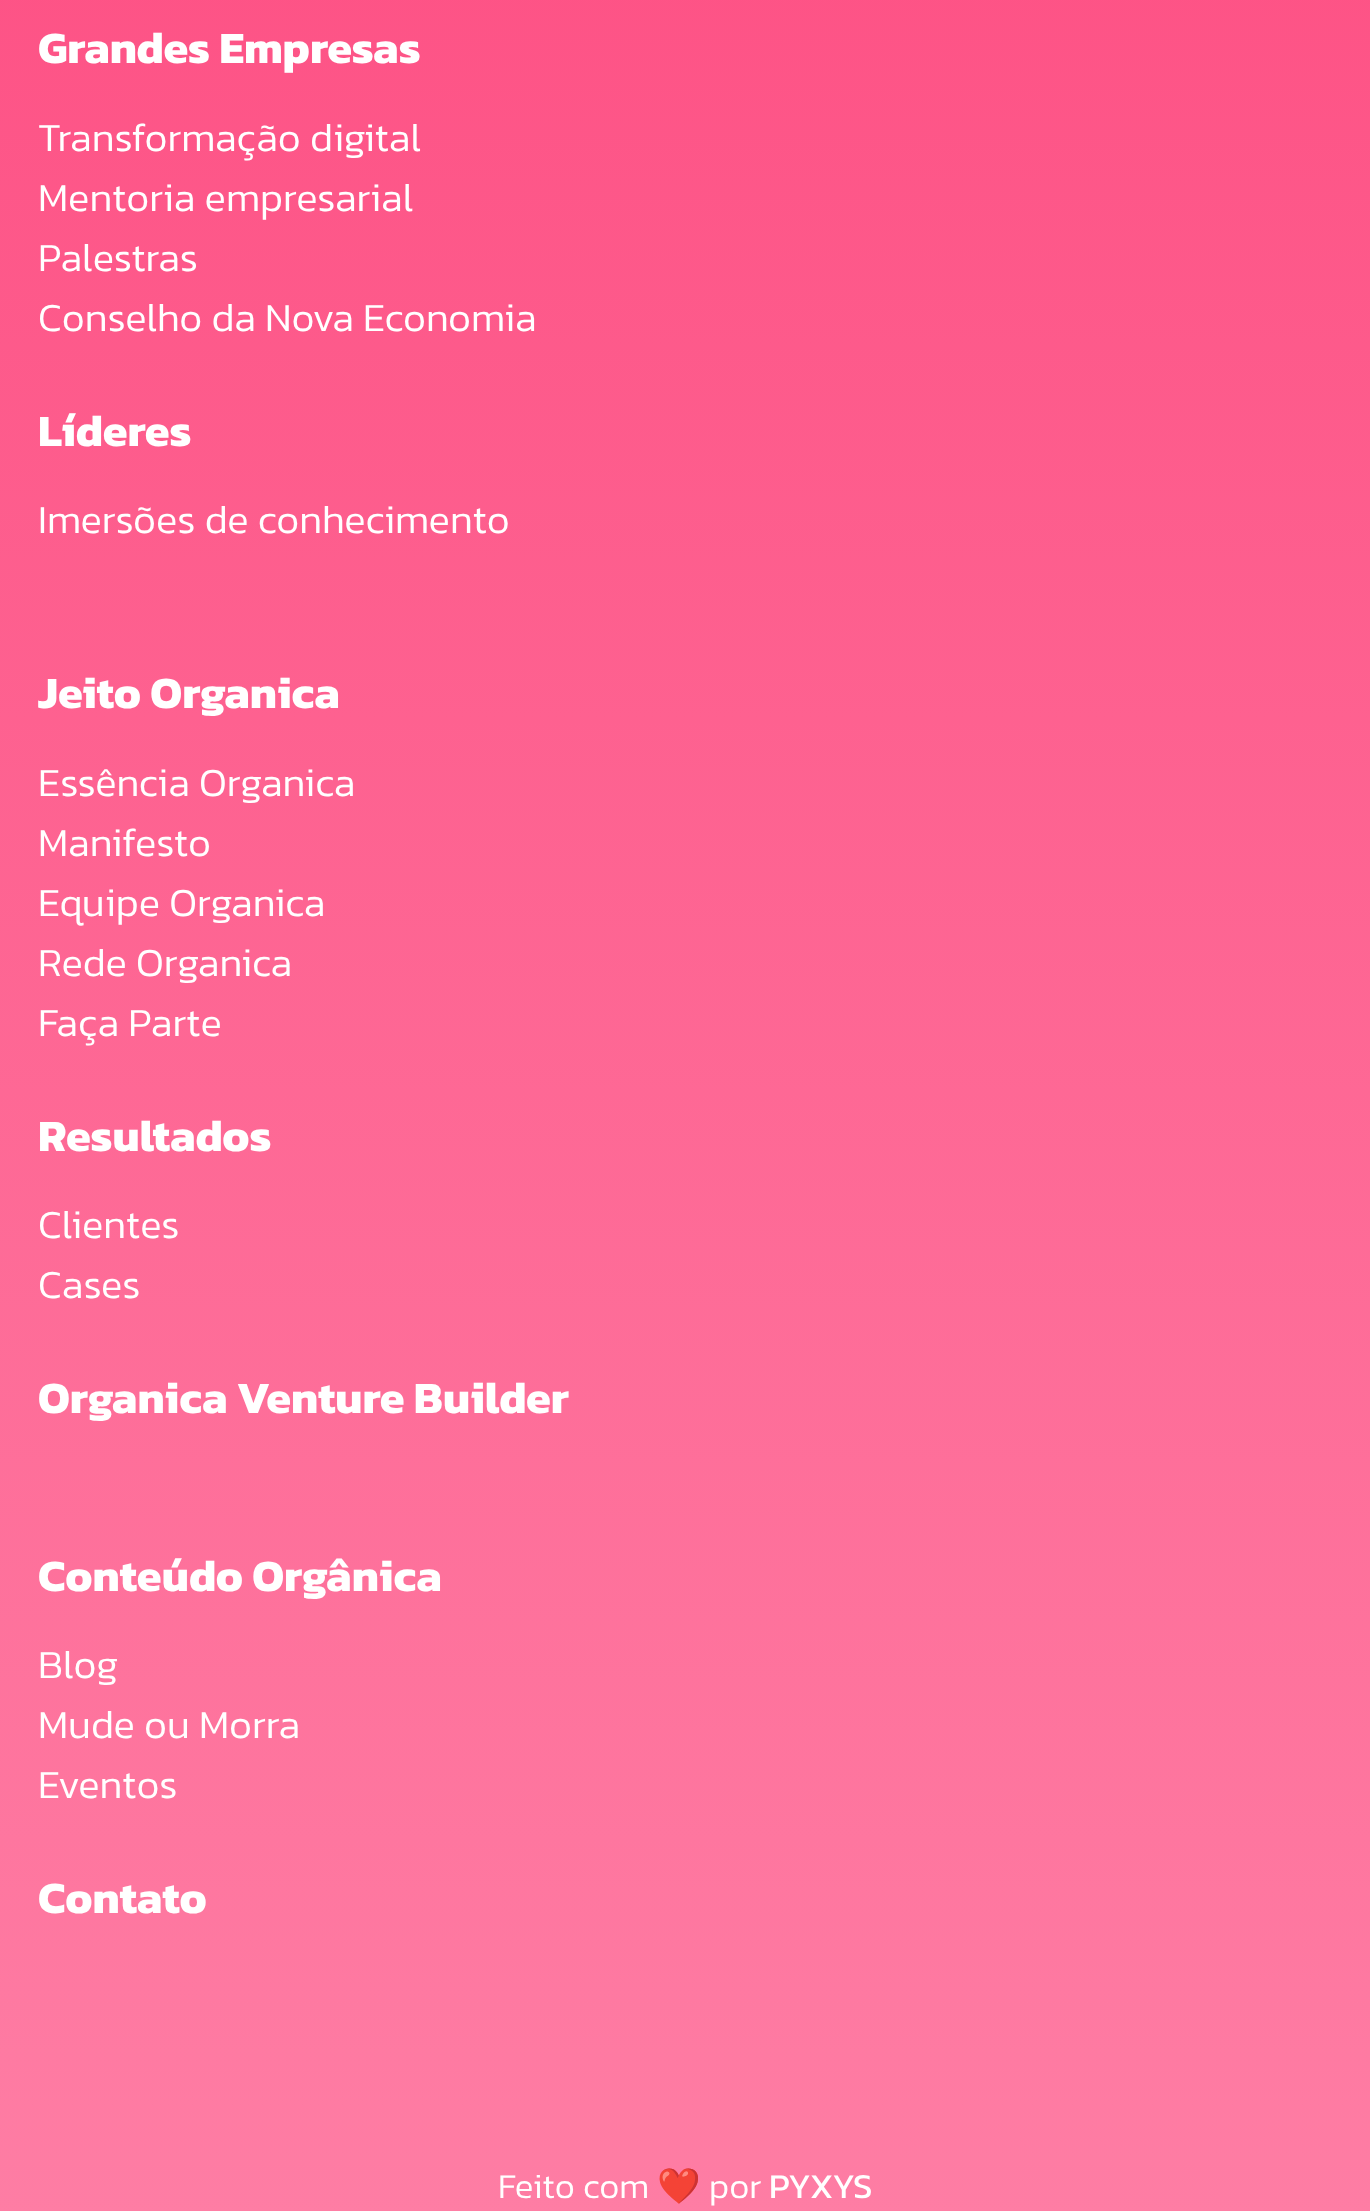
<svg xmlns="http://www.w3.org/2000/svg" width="1370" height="2211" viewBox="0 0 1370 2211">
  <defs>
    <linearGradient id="g1" gradientUnits="userSpaceOnUse" x1="685" y1="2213" x2="685" y2="-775"><stop offset="0" stop-color="#fe7da4"/><stop offset="1" stop-color="#fd457c"/></linearGradient>
  </defs>
  <rect width="100%" height="100%" fill="#ffffff"/>
  <rect x="0" y="0" width="1370" height="2211" fill="url(#g1)"/>
  <text x="38" y="63" font-family="Kanit" font-size="45" font-weight="bold" fill="#ffffff">Grandes Empresas</text>
  <text x="38" y="151" font-family="Kanit" font-size="40" font-weight="300" fill="#ffffff">Transformação digital</text>
  <text x="38" y="211" font-family="Kanit" font-size="40" font-weight="300" fill="#ffffff">Mentoria empresarial</text>
  <text x="38" y="271" font-family="Kanit" font-size="40" font-weight="300" fill="#ffffff">Palestras</text>
  <text x="38" y="331" font-family="Kanit" font-size="40" font-weight="300" fill="#ffffff">Conselho da Nova Economia</text>
  <text x="38" y="446" font-family="Kanit" font-size="45" font-weight="bold" fill="#ffffff">Líderes</text>
  <text x="38" y="533" font-family="Kanit" font-size="40" font-weight="300" fill="#ffffff">Imersões de conhecimento</text>
  <text x="38" y="708" font-family="Kanit" font-size="45" font-weight="bold" fill="#ffffff">Jeito Organica</text>
  <text x="38" y="796" font-family="Kanit" font-size="40" font-weight="300" fill="#ffffff">Essência Organica</text>
  <text x="38" y="856" font-family="Kanit" font-size="40" font-weight="300" fill="#ffffff">Manifesto</text>
  <text x="38" y="916" font-family="Kanit" font-size="40" font-weight="300" fill="#ffffff">Equipe Organica</text>
  <text x="38" y="976" font-family="Kanit" font-size="40" font-weight="300" fill="#ffffff">Rede Organica</text>
  <text x="38" y="1036" font-family="Kanit" font-size="40" font-weight="300" fill="#ffffff">Faça Parte</text>
  <text x="38" y="1151" font-family="Kanit" font-size="45" font-weight="bold" fill="#ffffff">Resultados</text>
  <text x="38" y="1238" font-family="Kanit" font-size="40" font-weight="300" fill="#ffffff">Clientes</text>
  <text x="38" y="1298" font-family="Kanit" font-size="40" font-weight="300" fill="#ffffff">Cases</text>
  <text x="38" y="1413" font-family="Kanit" font-size="45" font-weight="bold" fill="#ffffff">Organica Venture Builder</text>
  <text x="38" y="1591" font-family="Kanit" font-size="45" font-weight="bold" fill="#ffffff">Conteúdo Orgânica</text>
  <text x="38" y="1678" font-family="Kanit" font-size="40" font-weight="300" fill="#ffffff">Blog</text>
  <text x="38" y="1738" font-family="Kanit" font-size="40" font-weight="300" fill="#ffffff">Mude ou Morra</text>
  <text x="38" y="1798" font-family="Kanit" font-size="40" font-weight="300" fill="#ffffff">Eventos</text>
  <text x="38" y="1913" font-family="Kanit" font-size="45" font-weight="bold" fill="#ffffff">Contato</text>
  <text x="498" y="2198" font-family="Kanit" font-size="35" font-weight="300" fill="#ffffff">Feito com</text>
  <text x="657" y="2198" font-family="Noto Color Emoji" font-size="35" fill="#ffffff">❤️</text>
  <text x="709" y="2198" font-family="Kanit" font-size="35" font-weight="300" fill="#ffffff">por</text>
  <text x="769" y="2198" font-family="Kanit" font-size="35" fill="#ffffff">PYXYS</text>
</svg>
